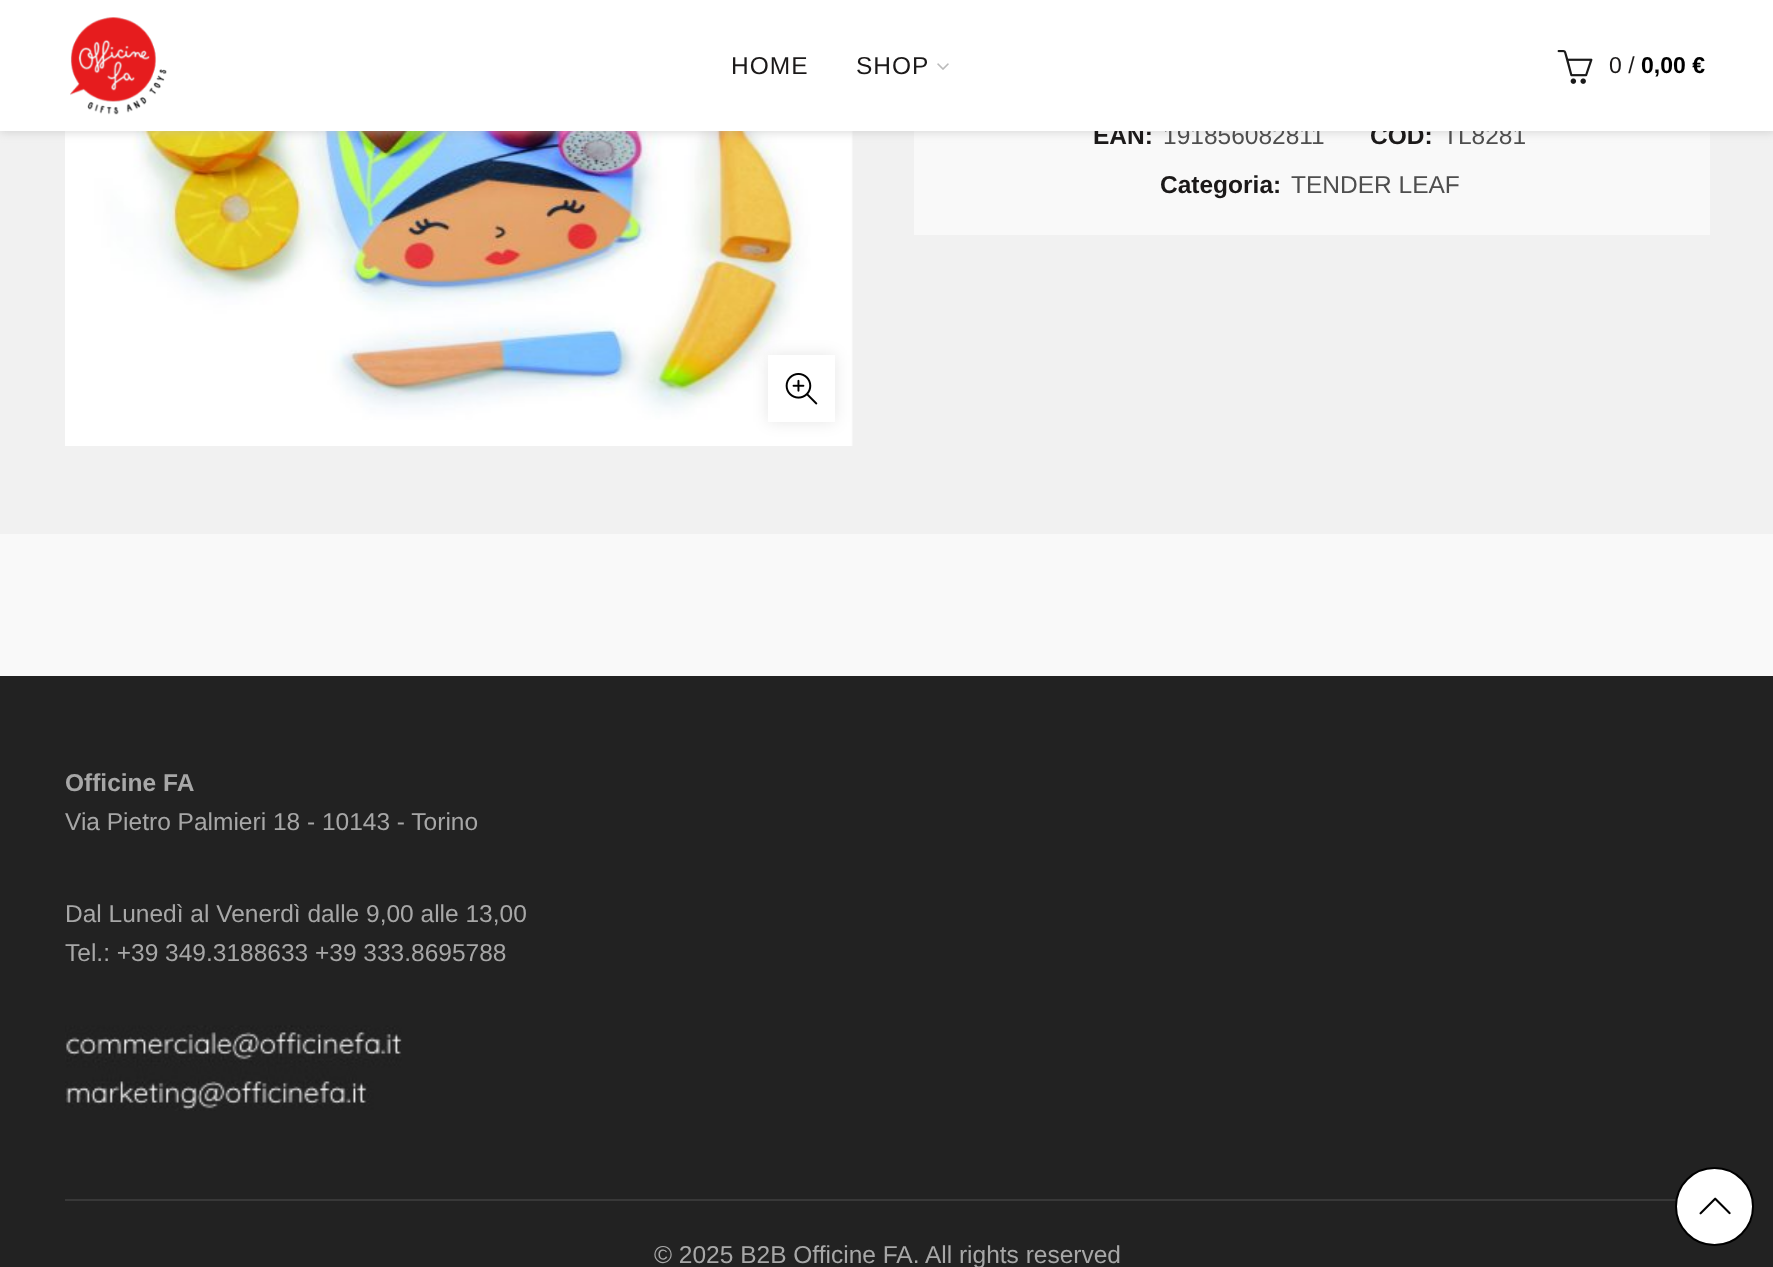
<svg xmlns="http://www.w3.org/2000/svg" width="1773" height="1267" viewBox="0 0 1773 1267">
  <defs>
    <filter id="blur1" x="-50%" y="-200%" width="200%" height="500%"><feGaussianBlur stdDeviation="4.5"/></filter>
    <filter id="blur2" x="-50%" y="-200%" width="200%" height="500%"><feGaussianBlur stdDeviation="8"/></filter>
  </defs>
  <rect width="100%" height="100%" fill="#f1f1f1"/>
  <image x="65" y="131" width="788" height="315" href="img4.png"/>
  <rect x="914" y="131" width="796" height="104" fill="#f9f9f9"/>
  <rect x="0" y="2" width="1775" height="131" fill="#bebebe" fill-opacity="0.5" filter="url(#blur1)"/>
  <text x="1093" y="144" font-family="Liberation Sans" font-size="24.5" font-weight="bold" fill="#1b1919">EAN:</text>
  <text x="1163" y="144" font-family="Liberation Sans" font-size="24.5" fill="#4e4e4e">191856082811</text>
  <text x="1370" y="144" font-family="Liberation Sans" font-size="24.5" font-weight="bold" fill="#1b1919">COD:</text>
  <text x="1443" y="144" font-family="Liberation Sans" font-size="24.5" fill="#4e4e4e">TL8281</text>
  <rect x="0" y="0" width="1773" height="131" fill="#ffffff"/>
  <image x="70" y="17" width="97" height="98" href="img1.png"/>
  <text x="731" y="74" font-family="Liberation Sans" font-size="24.5" letter-spacing="1" fill="#1b1919">HOME</text>
  <text x="856" y="74" font-family="Liberation Sans" font-size="24.5" letter-spacing="1" fill="#1b1919">SHOP</text>
  <image x="937" y="63" width="12" height="7" href="img2.png"/>
  <image x="1557" y="50" width="36" height="34" href="img3.png"/>
  <text x="1609" y="73" font-family="Liberation Sans" font-size="23" fill="#1b1919">0 /</text>
  <text x="1641" y="73" font-family="Liberation Sans" font-size="23" font-weight="bold" fill="#000000">0,00 €</text>
  <rect x="768" y="355" width="67" height="67" fill="#000000" fill-opacity="0.1" filter="url(#blur2)"/>
  <rect x="768" y="355" width="67" height="67" fill="#ffffff"/>
  <image x="785" y="373" width="33" height="32" href="img5.png"/>
  <text x="1160" y="193" font-family="Liberation Sans" font-size="24.5" font-weight="bold" fill="#1b1919">Categoria:</text>
  <text x="1291" y="193" font-family="Liberation Sans" font-size="24.5" fill="#4e4e4e">TENDER LEAF</text>
  <rect x="0" y="534" width="1773" height="142" fill="#f9f9f9"/>
  <rect x="0" y="676" width="1773" height="591" fill="#222222"/>
  <text x="65" y="791" font-family="Liberation Sans" font-size="24.5" font-weight="bold" fill="#a7a7a7">Officine FA</text>
  <text x="65" y="830" font-family="Liberation Sans" font-size="24.5" fill="#a7a7a7">Via Pietro Palmieri 18 - 10143 - Torino</text>
  <text x="65" y="922" font-family="Liberation Sans" font-size="24.5" fill="#a7a7a7">Dal Lunedì al Venerdì dalle 9,00 alle 13,00</text>
  <text x="65" y="961" font-family="Liberation Sans" font-size="24.5" fill="#a7a7a7">Tel.: +39 349.3188633 +39 333.8695788</text>
  <image x="65" y="1025" width="337" height="86" href="img6.png"/>
  <rect x="65" y="1199" width="1611" height="2" fill="#383838"/>
  <text x="654" y="1263" font-family="Liberation Sans" font-size="24.5" fill="#a7a7a7">© 2025 B2B Officine FA. All rights reserved</text>
  <circle cx="1714.5" cy="1206.5" r="38.5" fill="#ffffff" stroke="#000000" stroke-width="2"/>
  <image x="1699" y="1197" width="32" height="18" href="img7.png"/>
</svg>
